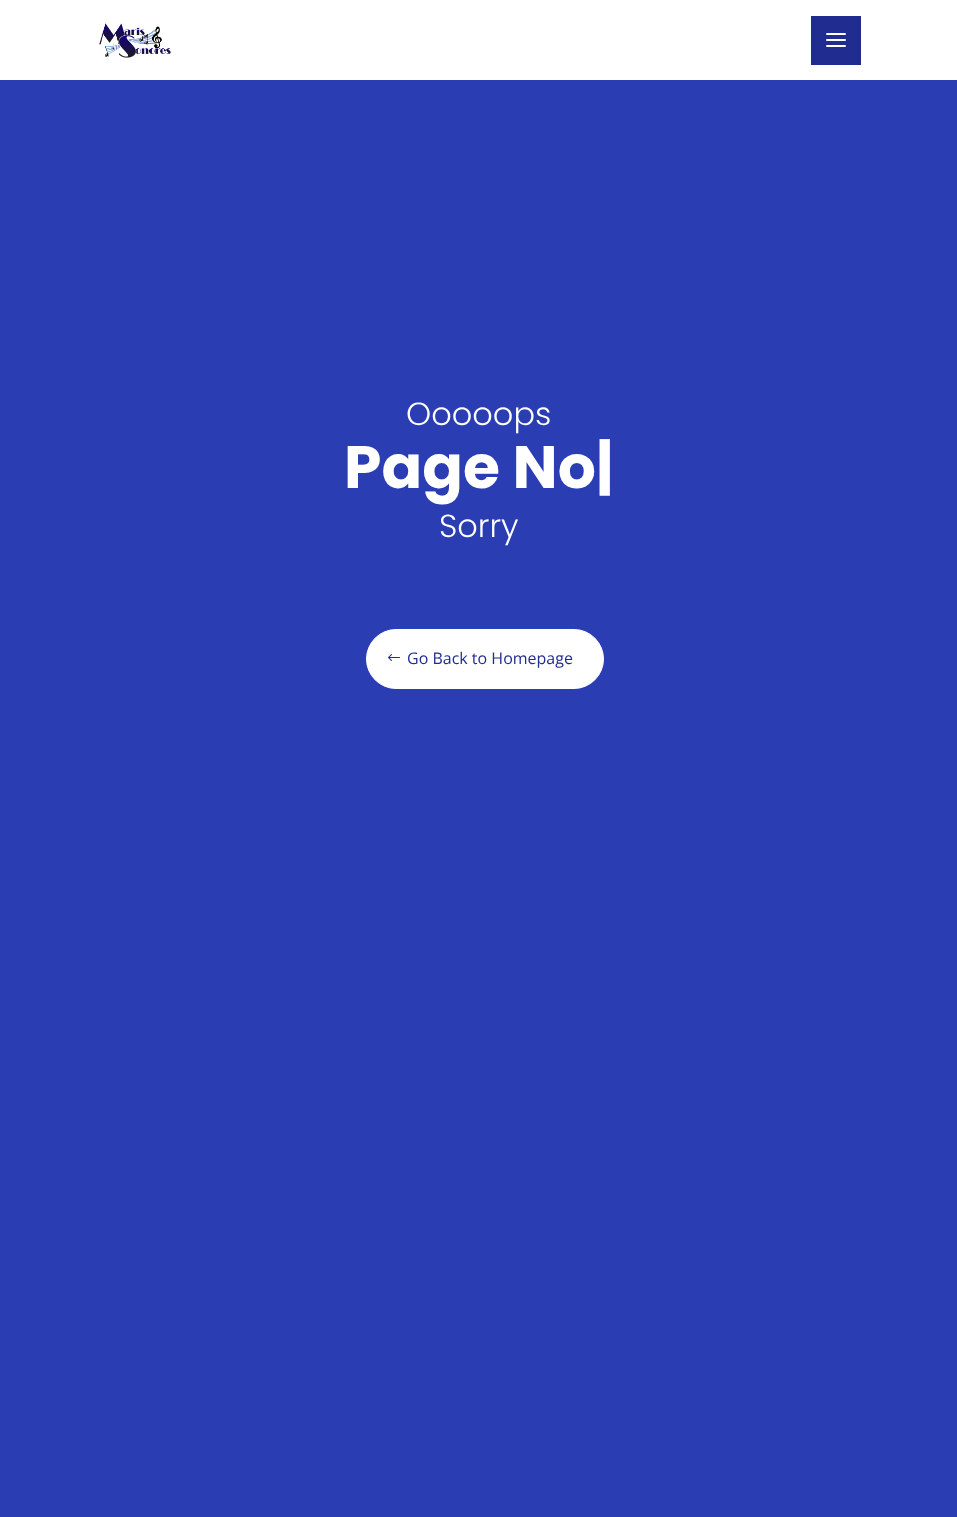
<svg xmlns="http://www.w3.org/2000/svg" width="957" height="1517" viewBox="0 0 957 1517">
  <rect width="100%" height="100%" fill="#2b3db3"/>
  <rect x="0" y="0" width="957" height="80" fill="#ffffff"/>
  <image x="99" y="23" width="72" height="35" href="img1.png"/>
  <rect x="811" y="16" width="50" height="49" fill="#212c91"/>
  <rect x="826" y="33" width="20" height="2" rx="1" fill="#ffffff"/>
  <rect x="826" y="39" width="20" height="2" rx="1" fill="#ffffff"/>
  <rect x="826" y="45" width="20" height="2" rx="1" fill="#ffffff"/>
  <text x="406" y="425" font-family="Poppins" font-size="32" font-weight="300" fill="#ffffff">Ooooops</text>
  <text x="344" y="488" font-family="Poppins" font-size="60" font-weight="bold" fill="#ffffff">Page No|</text>
  <text x="439" y="537" font-family="Poppins" font-size="32" font-weight="300" fill="#ffffff">Sorry</text>
  <rect x="366.5" y="629.5" width="237" height="59" rx="29.5" fill="#ffffff" stroke="#ffffff"/>
  <image x="388" y="654" width="12" height="7" href="img2.png"/>
  <text x="407" y="664" font-family="Open Sans" font-size="16" fill="#212c91">Go Back to Homepage</text>
</svg>
